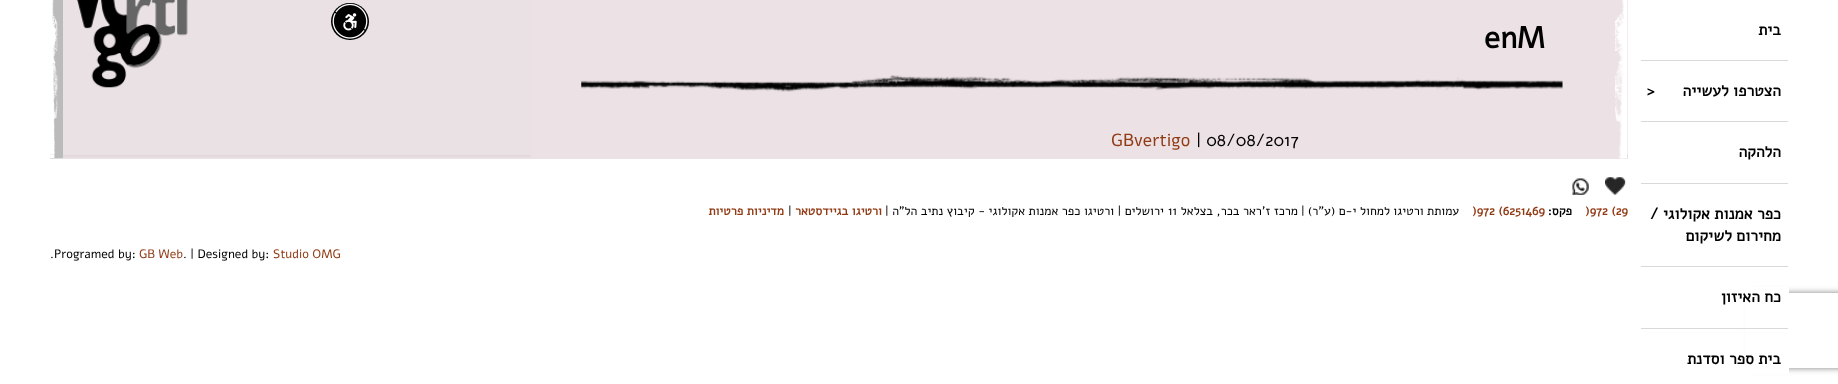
<svg xmlns="http://www.w3.org/2000/svg" width="1838" height="384" viewBox="0 0 1838 384">
  <defs>
    <clipPath id="clip1"><path d="M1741 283H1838V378H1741ZM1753.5 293H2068.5C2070 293 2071 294 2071 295.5V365.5C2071 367 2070 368 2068.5 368H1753.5C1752 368 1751 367 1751 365.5V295.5C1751 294 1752 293 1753.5 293Z" clip-rule="evenodd"/></clipPath>
    <filter id="blur1" x="-50%" y="-200%" width="200%" height="500%"><feGaussianBlur stdDeviation="3"/></filter>
  </defs>
  <rect width="100%" height="100%" fill="#ffffff"/>
  <rect x="50" y="0" width="1578" height="159" fill="#bbbbbb"/>
  <rect x="63" y="0" width="1565" height="155" fill="#e2dade"/>
  <image x="50" y="0" width="1578" height="159" href="img2.png"/>
  <rect x="63" y="0" width="468" height="159" fill="#ece2e6" fill-opacity="0.8"/>
  <rect x="331" y="3" width="38" height="37" rx="18.5" fill="#020202"/>
  <image x="332" y="3" width="36" height="36" href="img1.png"/>
  <rect x="531" y="0" width="1094" height="159" fill="#ece2e6"/>
  <image x="1615" y="0" width="13" height="159" href="img3.png"/>
  <g clip-path="url(#clip1)">
    <rect x="1751" y="293" width="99" height="75" rx="2.5" fill="#808080" filter="url(#blur1)"/>
  </g>
  <rect x="1745" y="287" width="44" height="87" fill="#ffffff"/>
  <rect x="1641" y="60" width="147" height="1" fill="#d9d9d9"/>
  <text x="1781" y="35" font-family="Alef" font-size="15.75" font-weight="bold" direction="rtl" fill="#000000">בית</text>
  <rect x="1641" y="121" width="147" height="1" fill="#d9d9d9"/>
  <text x="1781" y="96" font-family="Alef" font-size="15.75" font-weight="bold" direction="rtl" fill="#000000">הצטרפו לעשייה</text>
  <text x="1647" y="96" font-family="Alef" font-size="15.75" font-weight="bold" fill="#000000">&gt;</text>
  <rect x="1641" y="183" width="147" height="1" fill="#d9d9d9"/>
  <text x="1781" y="157" font-family="Alef" font-size="15.75" font-weight="bold" direction="rtl" fill="#000000">הלהקה</text>
  <rect x="1641" y="266" width="147" height="1" fill="#d9d9d9"/>
  <text x="1781" y="219" font-family="Alef" font-size="15.75" font-weight="bold" direction="rtl" fill="#000000">כפר אמנות אקולוגי /</text>
  <text x="1781" y="241" font-family="Alef" font-size="15.75" font-weight="bold" direction="rtl" fill="#000000">מחירום לשיקום</text>
  <rect x="1641" y="328" width="147" height="1" fill="#d9d9d9"/>
  <text x="1781" y="302" font-family="Alef" font-size="15.75" font-weight="bold" direction="rtl" fill="#000000">כח האיזון</text>
  <text x="1781" y="364" font-family="Alef" font-size="15.75" font-weight="bold" direction="rtl" fill="#000000">בית ספר וסדנת</text>
  <image x="581" y="75" width="982" height="17" href="img4.png"/>
  <text x="1484" y="48" font-family="Alef" font-size="30" font-weight="bold" fill="#000000">enM</text>
  <text x="1196" y="146" font-family="Alef" font-size="17.5" fill="#000000">| 08/08/2017</text>
  <text x="1111" y="146" font-family="Alef" font-size="17.5" fill="#913b15">GBvertigo</text>
  <image x="77" y="0" width="111" height="88" href="img5.png"/>
  <image x="1605" y="177" width="21" height="18" href="img6.png"/>
  <image x="1572" y="178" width="17" height="17" href="img7.png"/>
  <text x="1585" y="215" font-family="Alef" font-size="12.25" font-weight="bold" fill="#913b15">)972 (29</text>
  <text x="1572" y="215" font-family="Alef" font-size="12.25" font-weight="bold" direction="rtl" fill="#000000">פקס:</text>
  <text x="1472" y="215" font-family="Alef" font-size="12.25" font-weight="bold" fill="#913b15">)972 (6251469</text>
  <text x="1459" y="215" font-family="Alef" font-size="12.25" direction="rtl" fill="#000000">עמותת ורטיגו למחול י-ם (ע"ר)</text>
  <text x="1301" y="215" font-family="Alef" font-size="12.25" fill="#000000">|</text>
  <text x="1298" y="215" font-family="Alef" font-size="12.25" direction="rtl" fill="#000000">מרכז ז'ראר בכר, בצלאל</text>
  <text x="1168" y="215" font-family="Alef" font-size="12.25" fill="#000000">11</text>
  <text x="1164" y="215" font-family="Alef" font-size="12.25" direction="rtl" fill="#000000">ירושלים | ורטיגו כפר אמנות אקולוגי - קיבוץ נתיב הל"ה</text>
  <text x="885" y="215" font-family="Alef" font-size="12.25" fill="#000000">|</text>
  <text x="882" y="215" font-family="Alef" font-size="12.25" font-weight="bold" direction="rtl" fill="#913b15">ורטיגו בגיידסטאר</text>
  <text x="788" y="215" font-family="Alef" font-size="12.25" fill="#000000">|</text>
  <text x="784" y="215" font-family="Alef" font-size="12.25" font-weight="bold" direction="rtl" fill="#913b15">מדיניות פרטיות</text>
  <text x="273" y="258" font-family="Alef" font-size="12.25" fill="#913b15">Studio OMG</text>
  <text x="183" y="258" font-family="Alef" font-size="12.25" fill="#000000">. | Designed by:</text>
  <text x="139" y="258" font-family="Alef" font-size="12.25" fill="#913b15">GB Web</text>
  <text x="54" y="258" font-family="Alef" font-size="12.25" fill="#000000">Programed by:</text>
  <text x="50" y="258" font-family="Alef" font-size="12.25" fill="#000000">.</text>
</svg>
